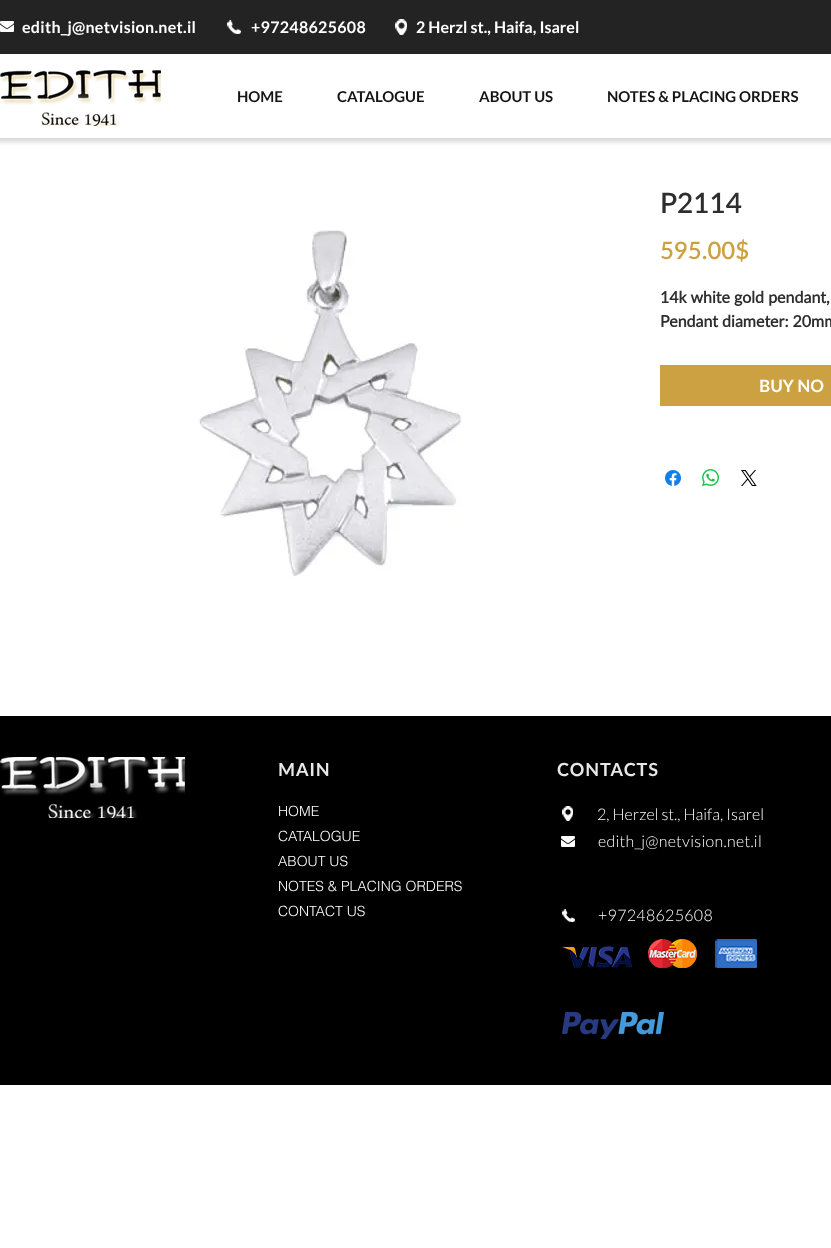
<svg xmlns="http://www.w3.org/2000/svg" width="831" height="1248" viewBox="0 0 831 1248">
  <defs>
    <filter id="blur1" x="-50%" y="-200%" width="200%" height="500%"><feGaussianBlur stdDeviation="2"/></filter>
  </defs>
  <rect width="100%" height="100%" fill="#ffffff"/>
  <rect x="0" y="0" width="831" height="54" fill="#242323"/>
  <image x="0" y="21" width="14" height="11" href="img1.png"/>
  <text x="22" y="33" font-family="Lato" font-size="16" font-weight="bold" letter-spacing="0.3" fill="#ffffff">edith_j@netvision.net.il</text>
  <image x="227" y="20" width="14" height="14" href="img2.png"/>
  <text x="251" y="33" font-family="Lato" font-size="16" font-weight="bold" letter-spacing="0.3" fill="#ffffff">+97248625608</text>
  <image x="395" y="19" width="12" height="16" href="img3.png"/>
  <text x="416" y="33" font-family="Lato" font-size="16" font-weight="bold" fill="#ffffff">2 Herzl st., Haifa, Isarel</text>
  <rect x="-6" y="58" width="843" height="84" fill="#000000" fill-opacity="0.15" filter="url(#blur1)"/>
  <rect x="0" y="55" width="831" height="83" fill="#ffffff"/>
  <image x="0" y="70" width="161" height="56" href="img4.png"/>
  <text x="237" y="102" font-family="Lato" font-size="15" font-weight="bold" fill="#151515">HOME</text>
  <text x="337" y="102" font-family="Lato" font-size="15" font-weight="bold" fill="#151515">CATALOGUE</text>
  <text x="479" y="102" font-family="Lato" font-size="15" font-weight="bold" fill="#151515">ABOUT US</text>
  <text x="607" y="102" font-family="Lato" font-size="15" font-weight="bold" fill="#151515">NOTES &amp; PLACING ORDERS</text>
  <image x="198" y="230" width="264" height="348" href="img5.png"/>
  <text x="660" y="213" font-family="Lato" font-size="28" font-weight="600" fill="#2f2e2e">P2114</text>
  <text x="660" y="259" font-family="Lato" font-size="24" font-weight="600" fill="#cca142">595.00$</text>
  <text x="660" y="303" font-family="'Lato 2'" font-size="16" font-weight="bold" fill="#2f2e2e">14k white gold pendant,</text>
  <text x="660" y="327" font-family="'Lato 2'" font-size="16" font-weight="bold" fill="#2f2e2e">Pendant diameter: 20mm</text>
  <rect x="660" y="365" width="171" height="41" fill="#cca142"/>
  <text x="759" y="392" font-family="'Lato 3'" font-size="17" font-weight="bold" fill="#ffffff">BUY NO</text>
  <image x="665" y="470" width="16" height="16" href="img6.png"/>
  <image x="702" y="469" width="17" height="17" href="img7.png"/>
  <image x="741" y="470" width="16" height="16" href="img8.png"/>
  <rect x="0" y="716" width="831" height="369" fill="#000000"/>
  <image x="0" y="757" width="185" height="61" href="img9.png"/>
  <text x="278" y="776" font-family="'Lato 3'" font-size="18" font-weight="bold" letter-spacing="1" fill="#e8e8e8">MAIN</text>
  <text x="557" y="776" font-family="'Lato 3'" font-size="18" font-weight="bold" letter-spacing="1" fill="#e8e8e8">CONTACTS</text>
  <text x="278" y="816" font-family="helvetica" font-size="14" font-weight="300" fill="#ffffff">HOME</text>
  <text x="278" y="841" font-family="helvetica" font-size="14" font-weight="300" fill="#ffffff">CATALOGUE</text>
  <text x="278" y="866" font-family="helvetica" font-size="14" font-weight="300" fill="#ffffff">ABOUT US</text>
  <text x="278" y="891" font-family="helvetica" font-size="14" font-weight="300" fill="#ffffff">NOTES &amp; PLACING ORDERS</text>
  <text x="278" y="916" font-family="helvetica" font-size="14" font-weight="300" fill="#ffffff">CONTACT US</text>
  <image x="562" y="806" width="11" height="15" href="img10.png"/>
  <text x="597" y="820" font-family="Lato" font-size="16" font-weight="300" fill="#ffffff">2, Herzel st., Haifa, Isarel</text>
  <image x="561" y="836" width="14" height="11" href="img11.png"/>
  <text x="598" y="847" font-family="Lato" font-size="16" font-weight="300" letter-spacing="0.3" fill="#ffffff">edith_j@netvision.net.il</text>
  <image x="562" y="909" width="13" height="13" href="img12.png"/>
  <text x="598" y="921" font-family="Lato" font-size="16" font-weight="300" letter-spacing="0.3" fill="#ffffff">+97248625608</text>
  <image x="562" y="946" width="70" height="22" href="img13.png"/>
  <image x="648" y="939" width="49" height="29" href="img14.png"/>
  <image x="715" y="939" width="42" height="29" href="img15.png"/>
  <image x="562" y="1012" width="102" height="27" href="img16.png"/>
</svg>
